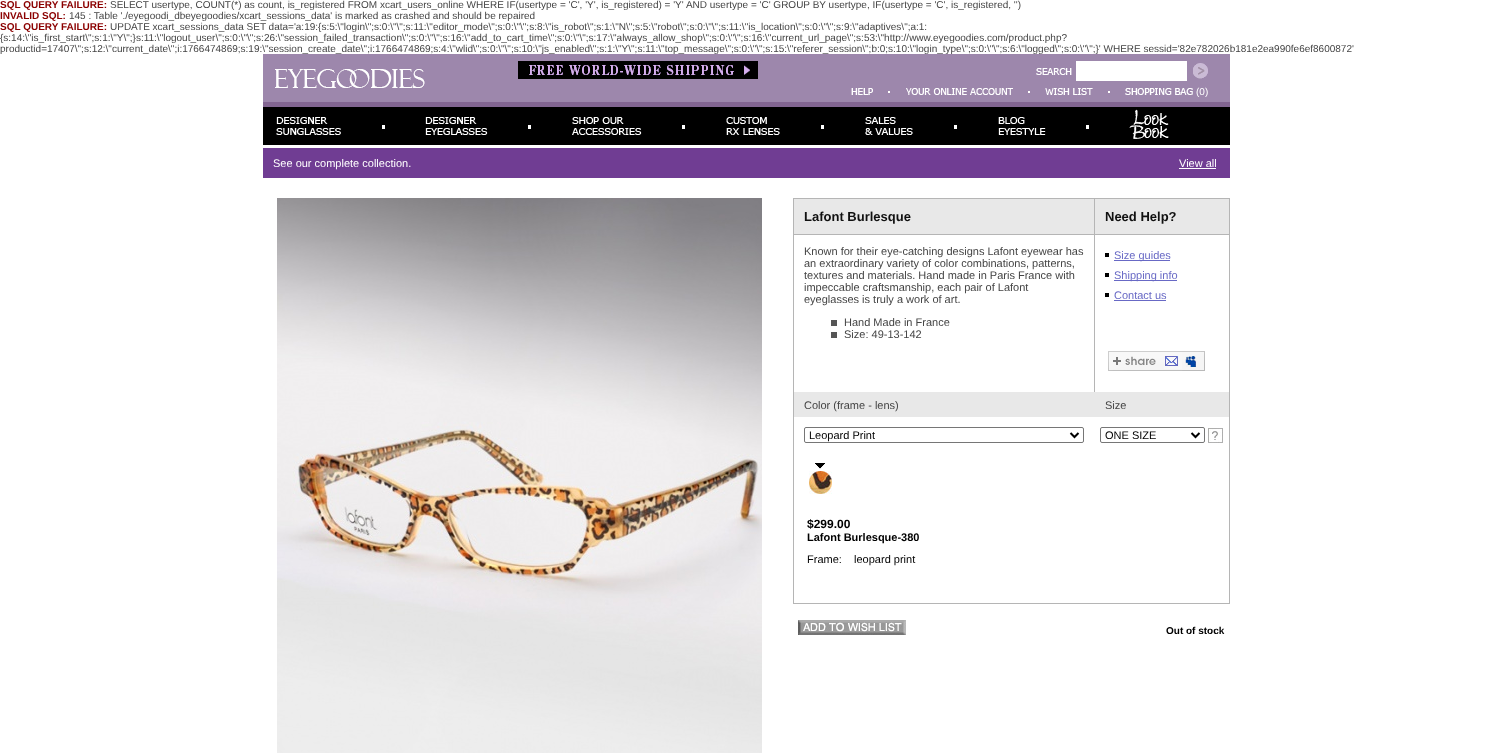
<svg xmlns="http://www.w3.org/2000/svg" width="1492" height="753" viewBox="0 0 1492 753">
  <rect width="100%" height="100%" fill="#ffffff"/>
  <text x="0" y="8" font-family="Liberation Sans" font-size="10" font-weight="bold" fill="#8b0000">SQL QUERY FAILURE:</text>
  <text x="110" y="8" font-family="Liberation Sans" font-size="10" fill="#444444">SELECT usertype, COUNT(*) as count, is_registered FROM xcart_users_online WHERE IF(usertype = 'C', 'Y', is_registered) = 'Y' AND usertype = 'C' GROUP BY usertype, IF(usertype = 'C', is_registered, '')</text>
  <text x="0" y="19" font-family="Liberation Sans" font-size="10" font-weight="bold" fill="#8b0000">INVALID SQL:</text>
  <text x="69" y="19" font-family="Liberation Sans" font-size="10" fill="#444444">145 : Table './eyegoodi_dbeyegoodies/xcart_sessions_data' is marked as crashed and should be repaired</text>
  <text x="0" y="30" font-family="Liberation Sans" font-size="10" font-weight="bold" fill="#8b0000">SQL QUERY FAILURE:</text>
  <text x="110" y="30" font-family="Liberation Sans" font-size="10" fill="#444444">UPDATE xcart_sessions_data SET data='a:19:{s:5:\"login\";s:0:\"\";s:11:\"editor_mode\";s:0:\"\";s:8:\"is_robot\";s:1:\"N\";s:5:\"robot\";s:0:\"\";s:11:\"is_location\";s:0:\"\";s:9:\"adaptives\";a:1:</text>
  <text x="0" y="41" font-family="Liberation Sans" font-size="10" fill="#444444">{s:14:\"is_first_start\";s:1:\"Y\";}s:11:\"logout_user\";s:0:\"\";s:26:\"session_failed_transaction\";s:0:\"\";s:16:\"add_to_cart_time\";s:0:\"\";s:17:\"always_allow_shop\";s:0:\"\";s:16:\"current_url_page\";s:53:\"http://www.eyegoodies.com/product.php?</text>
  <rect x="263" y="54" width="167" height="48" fill="#9d87ac"/>
  <rect x="430" y="54" width="6" height="48" fill="#9d87ac"/>
  <rect x="436" y="54" width="322" height="27" fill="#9d87ac"/>
  <rect x="758" y="54" width="472" height="27" fill="#9d87ac"/>
  <text x="0" y="52" font-family="Liberation Sans" font-size="10" fill="#444444">productid=17407\";s:12:\"current_date\";i:1766474869;s:19:\"session_create_date\";i:1766474869;s:4:\"wlid\";s:0:\"\";s:10:\"js_enabled\";s:1:\"Y\";s:11:\"top_message\";s:0:\"\";s:15:\"referer_session\";b:0;s:10:\"login_type\";s:0:\"\";s:6:\"logged\";s:0:\"\";}' WHERE sessid='82e782026b181e2ea990fe6ef8600872'</text>
  <image x="1036" y="68" width="36" height="7" href="img1.png"/>
  <rect x="1076" y="61" width="111" height="20" fill="#ffffff"/>
  <image x="1193" y="63" width="15" height="16" href="img2.png"/>
  <image x="275" y="69" width="150" height="19" href="img3.png"/>
  <image x="518" y="61" width="240" height="18" href="img4.png"/>
  <rect x="436" y="81" width="794" height="21" fill="#9d87ac"/>
  <image x="851" y="88" width="22" height="7" href="img5.png"/>
  <rect x="888" y="91" width="2" height="2" fill="#fefefc"/>
  <image x="906" y="88" width="107" height="7" href="img6.png"/>
  <rect x="1028" y="91" width="2" height="2" fill="#fefefc"/>
  <image x="1045" y="88" width="48" height="7" href="img7.png"/>
  <rect x="1108" y="91" width="2" height="2" fill="#fefefc"/>
  <image x="1125" y="88" width="68" height="7" href="img8.png"/>
  <text x="1196" y="95" font-family="Liberation Sans" font-size="10" fill="#ffffff">(0)</text>
  <rect x="263" y="102" width="967" height="5" fill="#826591"/>
  <image x="263" y="107" width="98" height="38" href="img9.png"/>
  <image x="361" y="107" width="45" height="38" href="img10.png"/>
  <image x="406" y="107" width="101" height="38" href="img11.png"/>
  <image x="507" y="107" width="45" height="38" href="img10.png"/>
  <image x="552" y="107" width="109" height="38" href="img12.png"/>
  <image x="661" y="107" width="45" height="38" href="img10.png"/>
  <image x="706" y="107" width="94" height="38" href="img13.png"/>
  <image x="800" y="107" width="45" height="38" href="img10.png"/>
  <image x="845" y="107" width="88" height="38" href="img14.png"/>
  <image x="933" y="107" width="45" height="38" href="img10.png"/>
  <image x="978" y="107" width="87" height="38" href="img15.png"/>
  <image x="1065" y="107" width="45" height="38" href="img10.png"/>
  <image x="1110" y="107" width="79" height="38" href="img16.png"/>
  <rect x="1189" y="107" width="41" height="38" fill="#000000"/>
  <rect x="263" y="148" width="967" height="30" fill="#703d93"/>
  <text x="273" y="167" font-family="Liberation Sans" font-size="11" fill="#ffffff">See our complete collection.</text>
  <text x="1179" y="167" font-family="Liberation Sans" font-size="11" fill="#ffffff">View all</text>
  <rect x="1179" y="168" width="37" height="1" fill="#ffffff"/>
  <image x="277" y="198" width="485" height="555" href="img17.png"/>
  <rect x="793.5" y="198.5" width="436" height="405" fill="none" stroke="#b5b5b5"/>
  <rect x="794" y="199" width="300" height="35" fill="#e8e8e8"/>
  <text x="804" y="221" font-family="Liberation Sans" font-size="13" font-weight="bold" fill="#111111">Lafont Burlesque</text>
  <rect x="1094" y="199" width="1" height="35" fill="#b5b5b5"/>
  <rect x="1095" y="199" width="134" height="35" fill="#e8e8e8"/>
  <text x="1105" y="221" font-family="Liberation Sans" font-size="13" font-weight="bold" fill="#111111">Need Help?</text>
  <rect x="794" y="234" width="435" height="1" fill="#b5b5b5"/>
  <text x="804" y="255" font-family="Liberation Sans" font-size="11" fill="#444444">Known for their eye-catching designs Lafont eyewear has</text>
  <text x="804" y="267" font-family="Liberation Sans" font-size="11" fill="#444444">an extraordinary variety of color combinations, patterns,</text>
  <text x="804" y="279" font-family="Liberation Sans" font-size="11" fill="#444444">textures and materials. Hand made in Paris France with</text>
  <text x="804" y="291" font-family="Liberation Sans" font-size="11" fill="#444444">impeccable craftsmanship, each pair of Lafont</text>
  <text x="804" y="303" font-family="Liberation Sans" font-size="11" fill="#444444">eyeglasses is truly a work of art.</text>
  <rect x="831" y="320" width="6" height="6" fill="#555555"/>
  <text x="844" y="326" font-family="Liberation Sans" font-size="11" fill="#444444">Hand Made in France</text>
  <rect x="831" y="332" width="6" height="6" fill="#555555"/>
  <text x="844" y="338" font-family="Liberation Sans" font-size="11" fill="#444444">Size: 49-13-142</text>
  <rect x="1094" y="235" width="1" height="157" fill="#b5b5b5"/>
  <rect x="1105" y="253" width="4" height="4" fill="#000000"/>
  <rect x="1114" y="260" width="56" height="1" fill="#6869c5"/>
  <text x="1114" y="259" font-family="Liberation Sans" font-size="11" fill="#6869c5">Size guides</text>
  <rect x="1105" y="273" width="4" height="4" fill="#000000"/>
  <rect x="1114" y="280" width="63" height="1" fill="#6869c5"/>
  <text x="1114" y="279" font-family="Liberation Sans" font-size="11" fill="#6869c5">Shipping info</text>
  <rect x="1105" y="293" width="4" height="4" fill="#000000"/>
  <text x="1114" y="299" font-family="Liberation Sans" font-size="11" fill="#6869c5">Contact us</text>
  <rect x="1114" y="300" width="52" height="1" fill="#6869c5"/>
  <image x="1108" y="351" width="97" height="20" href="img18.png"/>
  <rect x="794" y="392" width="435" height="25" fill="#e8e8e8"/>
  <text x="804" y="409" font-family="Liberation Sans" font-size="11" fill="#444444">Color (frame - lens)</text>
  <text x="1105" y="409" font-family="Liberation Sans" font-size="11" fill="#444444">Size</text>
  <rect x="804.5" y="427.5" width="279" height="15" rx="1.5" fill="none" stroke="#767676"/>
  <path d="M1070.5 433L1074.5 437L1078.5 433" fill="none" stroke="#000000" stroke-width="2"/>
  <text x="809" y="439" font-family="Liberation Sans" font-size="11" fill="#000000">Leopard Print</text>
  <rect x="1100.5" y="427.5" width="104" height="15" rx="1.5" fill="none" stroke="#767676"/>
  <path d="M1191.5 433L1195.5 437L1199.5 433" fill="none" stroke="#000000" stroke-width="2"/>
  <text x="1105" y="439" font-family="Liberation Sans" font-size="11" fill="#000000">ONE SIZE</text>
  <image x="1208" y="428" width="15" height="15" href="img19.png"/>
  <image x="815" y="463" width="10" height="6" href="img20.png"/>
  <image x="809" y="471" width="23" height="23" href="img21.png"/>
  <text x="807" y="528" font-family="Liberation Sans" font-size="12" font-weight="bold" fill="#000000">$299.00</text>
  <text x="807" y="541" font-family="Liberation Sans" font-size="11" font-weight="bold" fill="#000000">Lafont Burlesque-380</text>
  <text x="807" y="563" font-family="Liberation Sans" font-size="11" fill="#000000" xml:space="preserve">Frame:    leopard print</text>
  <image x="798" y="620" width="108" height="15" href="img22.png"/>
  <text x="1166" y="634" font-family="Liberation Sans" font-size="10" font-weight="bold" fill="#000000">Out of stock</text>
</svg>
